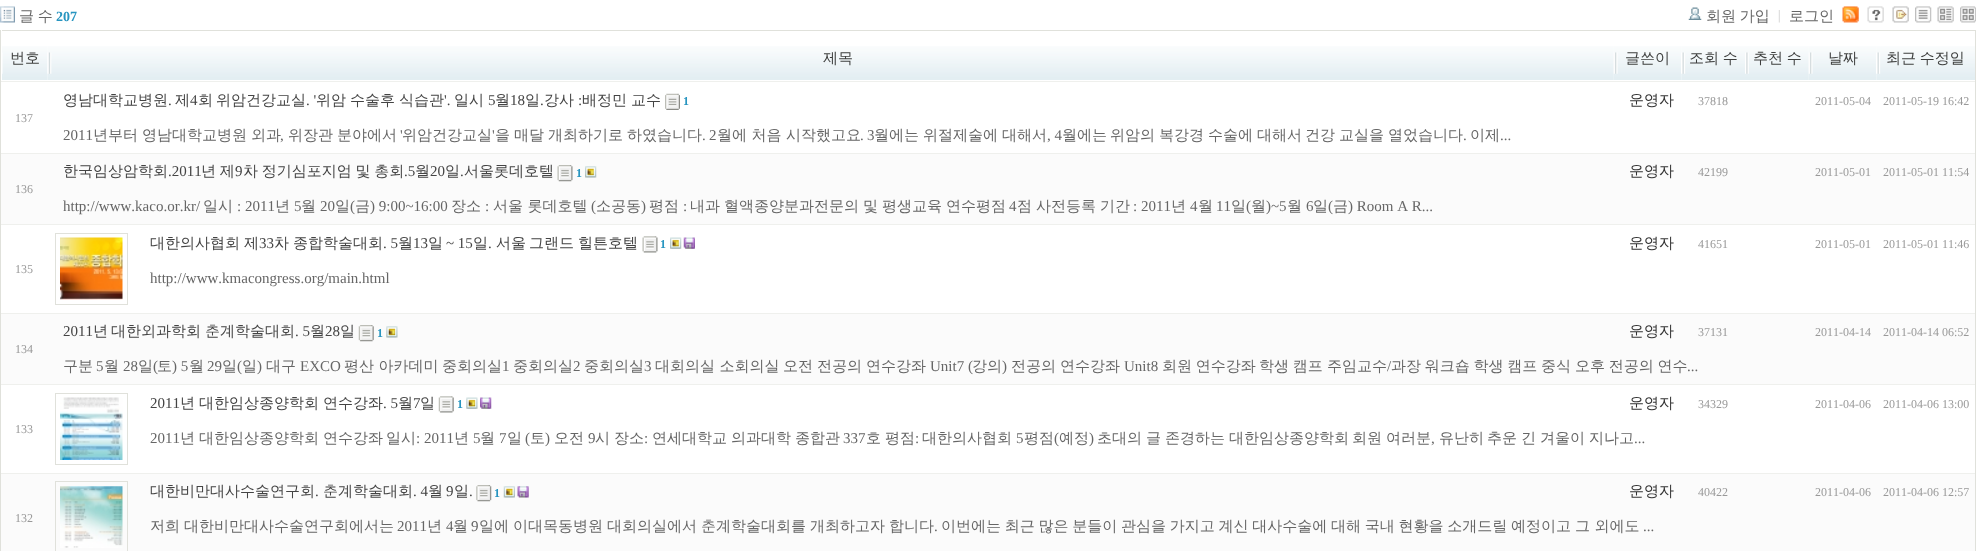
<svg xmlns="http://www.w3.org/2000/svg" width="1976" height="551" viewBox="0 0 1976 551">
  <style>*{font-kerning:none!important;font-variant-ligatures:none!important}</style>
  <rect width="100%" height="100%" fill="#ffffff"/>
  <image x="0" y="6" width="15" height="17" href="img1.png"/>
  <text x="19" y="21" word-spacing="-0.75" font-family="WenQuanYi Zen Hei" font-size="15" font-weight="500" fill="#666666">글 수</text>
  <text x="56" y="21" font-family="Liberation Serif" font-size="14" font-weight="bold" fill="#2895c0">207</text>
  <image x="1688" y="7" width="14" height="13" href="img2.png"/>
  <text x="1706" y="21" word-spacing="-0.75" font-family="WenQuanYi Zen Hei" font-size="15" font-weight="500" fill="#666666">회원 가입</text>
  <image x="1778" y="10" width="2" height="13" href="img3.png"/>
  <text x="1789" y="21" font-family="WenQuanYi Zen Hei" font-size="15" font-weight="500" fill="#666666">로그인</text>
  <image x="1842" y="6" width="17" height="17" href="img4.png"/>
  <image x="1867" y="6" width="17" height="17" href="img5.png"/>
  <image x="1892" y="6" width="17" height="17" href="img6.png"/>
  <image x="1915" y="6" width="17" height="17" href="img7.png"/>
  <image x="1937" y="6" width="17" height="17" href="img8.png"/>
  <image x="1960" y="6" width="16" height="17" href="img9.png"/>
  <rect x="1975" y="30" width="1" height="521" fill="#e0e1db"/>
  <rect x="0" y="30" width="1" height="521" fill="#e0e1db"/>
  <image x="2" y="46" width="46" height="34" href="img10.png"/>
  <rect x="1" y="30" width="1974" height="1" fill="#e0e1db"/>
  <rect x="1" y="30" width="1" height="1" fill="#ffffff"/>
  <text x="10" y="63" font-family="WenQuanYi Zen Hei" font-size="15" font-weight="500" fill="#3e3f3e">번호</text>
  <image x="47" y="46" width="1567" height="34" href="img11.png"/>
  <text x="823" y="63" font-family="WenQuanYi Zen Hei" font-size="15" font-weight="500" fill="#3e3f3e">제목</text>
  <image x="1613" y="46" width="68" height="34" href="img12.png"/>
  <text x="1625" y="63" font-family="WenQuanYi Zen Hei" font-size="15" font-weight="500" fill="#3e3f3e">글쓴이</text>
  <image x="1681" y="46" width="64" height="34" href="img13.png"/>
  <text x="1689" y="63" word-spacing="-0.75" font-family="WenQuanYi Zen Hei" font-size="15" font-weight="500" fill="#3e3f3e">조회 수</text>
  <image x="1745" y="46" width="64" height="34" href="img14.png"/>
  <text x="1753" y="63" word-spacing="-0.75" font-family="WenQuanYi Zen Hei" font-size="15" font-weight="500" fill="#3e3f3e">추천 수</text>
  <image x="1808" y="46" width="68" height="34" href="img15.png"/>
  <text x="1828" y="63" font-family="WenQuanYi Zen Hei" font-size="15" font-weight="500" fill="#3e3f3e">날짜</text>
  <image x="1876" y="46" width="99" height="34" href="img16.png"/>
  <text x="1886" y="63" word-spacing="-0.75" font-family="WenQuanYi Zen Hei" font-size="15" font-weight="500" fill="#3e3f3e">최근 수정일</text>
  <text x="63" y="105" font-family="WenQuanYi Zen Hei" font-size="15" font-weight="500" fill="#444444">영남대학교병원</text>
  <text x="168" y="105" font-family="Liberation Serif" font-size="15" fill="#444444">.</text>
  <text x="175" y="105" font-family="WenQuanYi Zen Hei" font-size="15" font-weight="500" fill="#444444">제</text>
  <text x="190" y="105" font-family="Liberation Serif" font-size="15" fill="#444444">4</text>
  <text x="198" y="105" font-family="WenQuanYi Zen Hei" font-size="15" font-weight="500" fill="#444444">회</text>
  <text x="216" y="105" font-family="WenQuanYi Zen Hei" font-size="15" font-weight="500" fill="#444444">위암건강교실</text>
  <text x="306" y="105" font-family="Liberation Serif" font-size="15" fill="#444444">. '</text>
  <text x="316" y="105" font-family="WenQuanYi Zen Hei" font-size="15" font-weight="500" fill="#444444">위암</text>
  <text x="350" y="105" font-family="WenQuanYi Zen Hei" font-size="15" font-weight="500" fill="#444444">수술후</text>
  <text x="399" y="105" font-family="WenQuanYi Zen Hei" font-size="15" font-weight="500" fill="#444444">식습관</text>
  <text x="444" y="105" font-family="Liberation Serif" font-size="15" fill="#444444">'.</text>
  <text x="454" y="105" font-family="WenQuanYi Zen Hei" font-size="15" font-weight="500" fill="#444444">일시</text>
  <text x="488" y="105" font-family="Liberation Serif" font-size="15" fill="#444444">5</text>
  <text x="495" y="105" font-family="WenQuanYi Zen Hei" font-size="15" font-weight="500" fill="#444444">월</text>
  <text x="510" y="105" font-family="Liberation Serif" font-size="15" fill="#444444">18</text>
  <text x="525" y="105" font-family="WenQuanYi Zen Hei" font-size="15" font-weight="500" fill="#444444">일</text>
  <text x="540" y="105" font-family="Liberation Serif" font-size="15" fill="#444444">.</text>
  <text x="544" y="105" font-family="WenQuanYi Zen Hei" font-size="15" font-weight="500" fill="#444444">강사</text>
  <text x="578" y="105" font-family="Liberation Serif" font-size="15" fill="#444444">:</text>
  <text x="582" y="105" font-family="WenQuanYi Zen Hei" font-size="15" font-weight="500" fill="#444444">배정민</text>
  <text x="631" y="105" font-family="WenQuanYi Zen Hei" font-size="15" font-weight="500" fill="#444444">교수</text>
  <image x="665" y="93" width="15" height="17" href="img17.png"/>
  <text x="683" y="105" font-family="Liberation Serif" font-size="12" font-weight="bold" fill="#2895c0">1</text>
  <text x="1629" y="105" font-family="WenQuanYi Zen Hei" font-size="15" font-weight="500" fill="#333333">운영자</text>
  <text x="1698" y="105" font-family="Liberation Serif" font-size="12" fill="#999999">37818</text>
  <text x="1815" y="105" font-family="Liberation Serif" font-size="12" fill="#999999">2011-05-04</text>
  <text x="1883" y="105" font-family="Liberation Serif" font-size="12" fill="#999999">2011-05-19 16:42</text>
  <rect x="1" y="81" width="1974" height="1" fill="#eff0ed"/>
  <text x="15" y="122" font-family="Liberation Serif" font-size="12" fill="#999999">137</text>
  <text x="63" y="140" font-family="Liberation Serif" font-size="15" fill="#666666">2011</text>
  <text x="93" y="140" word-spacing="-0.5" font-family="WenQuanYi Zen Hei" font-size="15" font-weight="500" fill="#666666">년부터 영남대학교병원 외과</text>
  <text x="280" y="140" font-family="Liberation Serif" font-size="15" fill="#666666">,</text>
  <text x="288" y="140" word-spacing="-0.5" font-family="WenQuanYi Zen Hei" font-size="15" font-weight="500" fill="#666666">위장관 분야에서</text>
  <text x="400" y="140" font-family="Liberation Serif" font-size="15" fill="#666666">'</text>
  <text x="402" y="140" font-family="WenQuanYi Zen Hei" font-size="15" font-weight="500" fill="#666666">위암건강교실</text>
  <text x="492" y="140" font-family="Liberation Serif" font-size="15" fill="#666666">'</text>
  <text x="495" y="140" word-spacing="-0.5" font-family="WenQuanYi Zen Hei" font-size="15" font-weight="500" fill="#666666">을 매달 개최하기로 하였습니다</text>
  <text x="702" y="140" font-family="Liberation Serif" font-size="15" fill="#666666">.</text>
  <text x="709" y="140" font-family="Liberation Serif" font-size="15" fill="#666666">2</text>
  <text x="717" y="140" font-family="WenQuanYi Zen Hei" font-size="15" font-weight="500" fill="#666666">월에 처음 시작했고요</text>
  <text x="860" y="140" font-family="Liberation Serif" font-size="15" fill="#666666">.</text>
  <text x="867" y="140" font-family="Liberation Serif" font-size="15" fill="#666666">3</text>
  <text x="874" y="140" font-family="WenQuanYi Zen Hei" font-size="15" font-weight="500" fill="#666666">월에는</text>
  <text x="923" y="140" font-family="WenQuanYi Zen Hei" font-size="15" font-weight="500" fill="#666666">위절제술에</text>
  <text x="1002" y="140" font-family="WenQuanYi Zen Hei" font-size="15" font-weight="500" fill="#666666">대해서</text>
  <text x="1047" y="140" font-family="Liberation Serif" font-size="15" fill="#666666">, 4</text>
  <text x="1062" y="140" font-family="WenQuanYi Zen Hei" font-size="15" font-weight="500" fill="#666666">월에는</text>
  <text x="1110" y="140" font-family="WenQuanYi Zen Hei" font-size="15" font-weight="500" fill="#666666">위암의</text>
  <text x="1159" y="140" font-family="WenQuanYi Zen Hei" font-size="15" font-weight="500" fill="#666666">복강경</text>
  <text x="1208" y="140" font-family="WenQuanYi Zen Hei" font-size="15" font-weight="500" fill="#666666">수술에</text>
  <text x="1257" y="140" font-family="WenQuanYi Zen Hei" font-size="15" font-weight="500" fill="#666666">대해서</text>
  <text x="1305" y="140" font-family="WenQuanYi Zen Hei" font-size="15" font-weight="500" fill="#666666">건강</text>
  <text x="1339" y="140" font-family="WenQuanYi Zen Hei" font-size="15" font-weight="500" fill="#666666">교실을</text>
  <text x="1388" y="140" font-family="WenQuanYi Zen Hei" font-size="15" font-weight="500" fill="#666666">열었습니다</text>
  <text x="1463" y="140" font-family="Liberation Serif" font-size="15" fill="#666666">.</text>
  <text x="1470" y="140" font-family="WenQuanYi Zen Hei" font-size="15" font-weight="500" fill="#666666">이제</text>
  <text x="1500" y="140" font-family="Liberation Serif" font-size="15" fill="#666666">...</text>
  <rect x="1" y="154" width="1974" height="70" fill="#fbfbfb"/>
  <text x="63" y="176" font-family="WenQuanYi Zen Hei" font-size="15" font-weight="500" fill="#444444">한국임상암학회</text>
  <text x="168" y="176" font-family="Liberation Serif" font-size="15" fill="#444444">.2011</text>
  <text x="201" y="176" word-spacing="-0.75" font-family="WenQuanYi Zen Hei" font-size="15" font-weight="500" fill="#444444">년 제</text>
  <text x="235" y="176" font-family="Liberation Serif" font-size="15" fill="#444444">9</text>
  <text x="243" y="176" word-spacing="-0.75" font-family="WenQuanYi Zen Hei" font-size="15" font-weight="500" fill="#444444">차 정기심포지엄 및 총회</text>
  <text x="404" y="176" font-family="Liberation Serif" font-size="15" fill="#444444">.5</text>
  <text x="415" y="176" font-family="WenQuanYi Zen Hei" font-size="15" font-weight="500" fill="#444444">월</text>
  <text x="430" y="176" font-family="Liberation Serif" font-size="15" fill="#444444">20</text>
  <text x="445" y="176" font-family="WenQuanYi Zen Hei" font-size="15" font-weight="500" fill="#444444">일</text>
  <text x="460" y="176" font-family="Liberation Serif" font-size="15" fill="#444444">.</text>
  <text x="464" y="176" font-family="WenQuanYi Zen Hei" font-size="15" font-weight="500" fill="#444444">서울롯데호텔</text>
  <image x="557" y="165" width="16" height="17" href="img18.png"/>
  <text x="576" y="177" font-family="Liberation Serif" font-size="12" font-weight="bold" fill="#2895c0">1</text>
  <image x="585" y="166" width="12" height="12" href="img19.png"/>
  <text x="1629" y="176" font-family="WenQuanYi Zen Hei" font-size="15" font-weight="500" fill="#333333">운영자</text>
  <text x="1698" y="176" font-family="Liberation Serif" font-size="12" fill="#999999">42199</text>
  <text x="1815" y="176" font-family="Liberation Serif" font-size="12" fill="#999999">2011-05-01</text>
  <text x="1883" y="176" font-family="Liberation Serif" font-size="12" fill="#999999">2011-05-01 11:54</text>
  <rect x="1" y="153" width="1974" height="1" fill="#eff0ed"/>
  <text x="15" y="193" font-family="Liberation Serif" font-size="12" fill="#999999">136</text>
  <text x="63" y="211" font-family="Liberation Serif" font-size="15" fill="#666666">http://www.kaco.or.kr/</text>
  <text x="203" y="211" font-family="WenQuanYi Zen Hei" font-size="15" font-weight="500" fill="#666666">일시</text>
  <text x="237" y="211" font-family="Liberation Serif" font-size="15" fill="#666666">: 2011</text>
  <text x="275" y="211" font-family="WenQuanYi Zen Hei" font-size="15" font-weight="500" fill="#666666">년</text>
  <text x="294" y="211" font-family="Liberation Serif" font-size="15" fill="#666666">5</text>
  <text x="301" y="211" font-family="WenQuanYi Zen Hei" font-size="15" font-weight="500" fill="#666666">월</text>
  <text x="320" y="211" font-family="Liberation Serif" font-size="15" fill="#666666">20</text>
  <text x="335" y="211" font-family="WenQuanYi Zen Hei" font-size="15" font-weight="500" fill="#666666">일</text>
  <text x="350" y="211" font-family="Liberation Serif" font-size="15" fill="#666666">(</text>
  <text x="355" y="211" font-family="WenQuanYi Zen Hei" font-size="15" font-weight="500" fill="#666666">금</text>
  <text x="370" y="211" font-family="Liberation Serif" font-size="15" fill="#666666">) 9:00~16:00</text>
  <text x="451" y="211" font-family="WenQuanYi Zen Hei" font-size="15" font-weight="500" fill="#666666">장소</text>
  <text x="485" y="211" font-family="Liberation Serif" font-size="15" fill="#666666">:</text>
  <text x="493" y="211" font-family="WenQuanYi Zen Hei" font-size="15" font-weight="500" fill="#666666">서울 롯데호텔</text>
  <text x="591" y="211" font-family="Liberation Serif" font-size="15" fill="#666666">(</text>
  <text x="596" y="211" font-family="WenQuanYi Zen Hei" font-size="15" font-weight="500" fill="#666666">소공동</text>
  <text x="641" y="211" font-family="Liberation Serif" font-size="15" fill="#666666">)</text>
  <text x="649" y="211" font-family="WenQuanYi Zen Hei" font-size="15" font-weight="500" fill="#666666">평점</text>
  <text x="683" y="211" font-family="Liberation Serif" font-size="15" fill="#666666">:</text>
  <text x="690" y="211" word-spacing="-0.5" font-family="WenQuanYi Zen Hei" font-size="15" font-weight="500" fill="#666666">내과 혈액종양분과전문의 및 평생교육 연수평점</text>
  <text x="1009" y="211" font-family="Liberation Serif" font-size="15" fill="#666666">4</text>
  <text x="1017" y="211" font-family="WenQuanYi Zen Hei" font-size="15" font-weight="500" fill="#666666">점</text>
  <text x="1036" y="211" font-family="WenQuanYi Zen Hei" font-size="15" font-weight="500" fill="#666666">사전등록</text>
  <text x="1100" y="211" font-family="WenQuanYi Zen Hei" font-size="15" font-weight="500" fill="#666666">기간</text>
  <text x="1133" y="211" font-family="Liberation Serif" font-size="15" fill="#666666">: 2011</text>
  <text x="1171" y="211" font-family="WenQuanYi Zen Hei" font-size="15" font-weight="500" fill="#666666">년</text>
  <text x="1190" y="211" font-family="Liberation Serif" font-size="15" fill="#666666">4</text>
  <text x="1198" y="211" font-family="WenQuanYi Zen Hei" font-size="15" font-weight="500" fill="#666666">월</text>
  <text x="1216" y="211" font-family="Liberation Serif" font-size="15" fill="#666666">11</text>
  <text x="1231" y="211" font-family="WenQuanYi Zen Hei" font-size="15" font-weight="500" fill="#666666">일</text>
  <text x="1246" y="211" font-family="Liberation Serif" font-size="15" fill="#666666">(</text>
  <text x="1251" y="211" font-family="WenQuanYi Zen Hei" font-size="15" font-weight="500" fill="#666666">월</text>
  <text x="1266" y="211" font-family="Liberation Serif" font-size="15" fill="#666666">)~5</text>
  <text x="1287" y="211" font-family="WenQuanYi Zen Hei" font-size="15" font-weight="500" fill="#666666">월</text>
  <text x="1306" y="211" font-family="Liberation Serif" font-size="15" fill="#666666">6</text>
  <text x="1313" y="211" font-family="WenQuanYi Zen Hei" font-size="15" font-weight="500" fill="#666666">일</text>
  <text x="1328" y="211" font-family="Liberation Serif" font-size="15" fill="#666666">(</text>
  <text x="1333" y="211" font-family="WenQuanYi Zen Hei" font-size="15" font-weight="500" fill="#666666">금</text>
  <text x="1348" y="211" font-family="Liberation Serif" font-size="15" fill="#666666">) Room A R...</text>
  <rect x="55.5" y="233.5" width="72" height="71" fill="none" stroke="#e0e1db"/>
  <image x="60" y="237" width="63" height="63" href="img20.png"/>
  <text x="150" y="248" font-family="WenQuanYi Zen Hei" font-size="15" font-weight="500" fill="#444444">대한의사협회</text>
  <text x="244" y="248" font-family="WenQuanYi Zen Hei" font-size="15" font-weight="500" fill="#444444">제</text>
  <text x="259" y="248" font-family="Liberation Serif" font-size="15" fill="#444444">33</text>
  <text x="274" y="248" font-family="WenQuanYi Zen Hei" font-size="15" font-weight="500" fill="#444444">차</text>
  <text x="293" y="248" font-family="WenQuanYi Zen Hei" font-size="15" font-weight="500" fill="#444444">종합학술대회</text>
  <text x="383" y="248" font-family="Liberation Serif" font-size="15" fill="#444444">. 5</text>
  <text x="398" y="248" font-family="WenQuanYi Zen Hei" font-size="15" font-weight="500" fill="#444444">월</text>
  <text x="413" y="248" font-family="Liberation Serif" font-size="15" fill="#444444">13</text>
  <text x="428" y="248" font-family="WenQuanYi Zen Hei" font-size="15" font-weight="500" fill="#444444">일</text>
  <text x="446" y="248" font-family="Liberation Serif" font-size="15" fill="#444444">~ 15</text>
  <text x="473" y="248" font-family="WenQuanYi Zen Hei" font-size="15" font-weight="500" fill="#444444">일</text>
  <text x="488" y="248" font-family="Liberation Serif" font-size="15" fill="#444444">.</text>
  <text x="496" y="248" font-family="WenQuanYi Zen Hei" font-size="15" font-weight="500" fill="#444444">서울</text>
  <text x="529" y="248" font-family="WenQuanYi Zen Hei" font-size="15" font-weight="500" fill="#444444">그랜드</text>
  <text x="578" y="248" font-family="WenQuanYi Zen Hei" font-size="15" font-weight="500" fill="#444444">힐튼호텔</text>
  <image x="642" y="236" width="16" height="17" href="img21.png"/>
  <text x="660" y="248" font-family="Liberation Serif" font-size="12" font-weight="bold" fill="#2895c0">1</text>
  <image x="670" y="237" width="12" height="12" href="img22.png"/>
  <image x="683" y="237" width="12" height="12" href="img23.png"/>
  <text x="1629" y="248" font-family="WenQuanYi Zen Hei" font-size="15" font-weight="500" fill="#333333">운영자</text>
  <text x="1698" y="248" font-family="Liberation Serif" font-size="12" fill="#999999">41651</text>
  <text x="1815" y="248" font-family="Liberation Serif" font-size="12" fill="#999999">2011-05-01</text>
  <text x="1883" y="248" font-family="Liberation Serif" font-size="12" fill="#999999">2011-05-01 11:46</text>
  <rect x="1" y="224" width="1974" height="1" fill="#eff0ed"/>
  <text x="15" y="273" font-family="Liberation Serif" font-size="12" fill="#999999">135</text>
  <text x="150" y="283" font-family="Liberation Serif" font-size="15" fill="#666666">http://www.kmacongress.org/main.html</text>
  <rect x="1" y="314" width="1974" height="70" fill="#fbfbfb"/>
  <text x="63" y="336" font-family="Liberation Serif" font-size="15" fill="#444444">2011</text>
  <text x="93" y="336" font-family="WenQuanYi Zen Hei" font-size="15" font-weight="500" fill="#444444">년</text>
  <text x="111" y="336" font-family="WenQuanYi Zen Hei" font-size="15" font-weight="500" fill="#444444">대한외과학회</text>
  <text x="205" y="336" font-family="WenQuanYi Zen Hei" font-size="15" font-weight="500" fill="#444444">춘계학술대회</text>
  <text x="295" y="336" font-family="Liberation Serif" font-size="15" fill="#444444">. 5</text>
  <text x="310" y="336" font-family="WenQuanYi Zen Hei" font-size="15" font-weight="500" fill="#444444">월</text>
  <text x="325" y="336" font-family="Liberation Serif" font-size="15" fill="#444444">28</text>
  <text x="340" y="336" font-family="WenQuanYi Zen Hei" font-size="15" font-weight="500" fill="#444444">일</text>
  <image x="358" y="325" width="16" height="17" href="img24.png"/>
  <text x="377" y="337" font-family="Liberation Serif" font-size="12" font-weight="bold" fill="#2895c0">1</text>
  <image x="386" y="326" width="12" height="12" href="img25.png"/>
  <text x="1629" y="336" font-family="WenQuanYi Zen Hei" font-size="15" font-weight="500" fill="#333333">운영자</text>
  <text x="1698" y="336" font-family="Liberation Serif" font-size="12" fill="#999999">37131</text>
  <text x="1815" y="336" font-family="Liberation Serif" font-size="12" fill="#999999">2011-04-14</text>
  <text x="1883" y="336" font-family="Liberation Serif" font-size="12" fill="#999999">2011-04-14 06:52</text>
  <rect x="1" y="313" width="1974" height="1" fill="#eff0ed"/>
  <text x="15" y="353" font-family="Liberation Serif" font-size="12" fill="#999999">134</text>
  <text x="63" y="371" font-family="WenQuanYi Zen Hei" font-size="15" font-weight="500" fill="#666666">구분</text>
  <text x="96" y="371" font-family="Liberation Serif" font-size="15" fill="#666666">5</text>
  <text x="104" y="371" font-family="WenQuanYi Zen Hei" font-size="15" font-weight="500" fill="#666666">월</text>
  <text x="123" y="371" font-family="Liberation Serif" font-size="15" fill="#666666">28</text>
  <text x="138" y="371" font-family="WenQuanYi Zen Hei" font-size="15" font-weight="500" fill="#666666">일</text>
  <text x="153" y="371" font-family="Liberation Serif" font-size="15" fill="#666666">(</text>
  <text x="157" y="371" font-family="WenQuanYi Zen Hei" font-size="15" font-weight="500" fill="#666666">토</text>
  <text x="172" y="371" font-family="Liberation Serif" font-size="15" fill="#666666">) 5</text>
  <text x="189" y="371" font-family="WenQuanYi Zen Hei" font-size="15" font-weight="500" fill="#666666">월</text>
  <text x="207" y="371" font-family="Liberation Serif" font-size="15" fill="#666666">29</text>
  <text x="222" y="371" font-family="WenQuanYi Zen Hei" font-size="15" font-weight="500" fill="#666666">일</text>
  <text x="237" y="371" font-family="Liberation Serif" font-size="15" fill="#666666">(</text>
  <text x="242" y="371" font-family="WenQuanYi Zen Hei" font-size="15" font-weight="500" fill="#666666">일</text>
  <text x="257" y="371" font-family="Liberation Serif" font-size="15" fill="#666666">)</text>
  <text x="266" y="371" font-family="WenQuanYi Zen Hei" font-size="15" font-weight="500" fill="#666666">대구</text>
  <text x="300" y="371" font-family="Liberation Serif" font-size="15" fill="#666666">EXCO</text>
  <text x="344" y="371" font-family="WenQuanYi Zen Hei" font-size="15" font-weight="500" fill="#666666">평산 아카데미</text>
  <text x="442" y="371" font-family="WenQuanYi Zen Hei" font-size="15" font-weight="500" fill="#666666">중회의실</text>
  <text x="502" y="371" font-family="Liberation Serif" font-size="15" fill="#666666">1</text>
  <text x="513" y="371" font-family="WenQuanYi Zen Hei" font-size="15" font-weight="500" fill="#666666">중회의실</text>
  <text x="573" y="371" font-family="Liberation Serif" font-size="15" fill="#666666">2</text>
  <text x="584" y="371" font-family="WenQuanYi Zen Hei" font-size="15" font-weight="500" fill="#666666">중회의실</text>
  <text x="644" y="371" font-family="Liberation Serif" font-size="15" fill="#666666">3</text>
  <text x="655" y="371" font-family="WenQuanYi Zen Hei" font-size="15" font-weight="500" fill="#666666">대회의실 소회의실</text>
  <text x="783" y="371" font-family="WenQuanYi Zen Hei" font-size="15" font-weight="500" fill="#666666">오전</text>
  <text x="817" y="371" font-family="WenQuanYi Zen Hei" font-size="15" font-weight="500" fill="#666666">전공의</text>
  <text x="866" y="371" font-family="WenQuanYi Zen Hei" font-size="15" font-weight="500" fill="#666666">연수강좌</text>
  <text x="930" y="371" font-family="Liberation Serif" font-size="15" fill="#666666">Unit7 (</text>
  <text x="972" y="371" font-family="WenQuanYi Zen Hei" font-size="15" font-weight="500" fill="#666666">강의</text>
  <text x="1002" y="371" font-family="Liberation Serif" font-size="15" fill="#666666">)</text>
  <text x="1011" y="371" font-family="WenQuanYi Zen Hei" font-size="15" font-weight="500" fill="#666666">전공의</text>
  <text x="1060" y="371" font-family="WenQuanYi Zen Hei" font-size="15" font-weight="500" fill="#666666">연수강좌</text>
  <text x="1124" y="371" font-family="Liberation Serif" font-size="15" fill="#666666">Unit8</text>
  <text x="1162" y="371" word-spacing="-0.75" font-family="WenQuanYi Zen Hei" font-size="15" font-weight="500" fill="#666666">회원 연수강좌</text>
  <text x="1259" y="371" word-spacing="-0.75" font-family="WenQuanYi Zen Hei" font-size="15" font-weight="500" fill="#666666">학생 캠프</text>
  <text x="1327" y="371" font-family="WenQuanYi Zen Hei" font-size="15" font-weight="500" fill="#666666">주임교수</text>
  <text x="1387" y="371" font-family="Liberation Serif" font-size="15" fill="#666666">/</text>
  <text x="1391" y="371" word-spacing="-0.75" font-family="WenQuanYi Zen Hei" font-size="15" font-weight="500" fill="#666666">과장 워크숍 학생 캠프</text>
  <text x="1541" y="371" font-family="WenQuanYi Zen Hei" font-size="15" font-weight="500" fill="#666666">중식</text>
  <text x="1575" y="371" word-spacing="-0.75" font-family="WenQuanYi Zen Hei" font-size="15" font-weight="500" fill="#666666">오후 전공의 연수</text>
  <text x="1687" y="371" font-family="Liberation Serif" font-size="15" fill="#666666">...</text>
  <rect x="55.5" y="393.5" width="72" height="71" fill="none" stroke="#e0e1db"/>
  <image x="60" y="397" width="63" height="63" href="img26.png"/>
  <text x="150" y="408" font-family="Liberation Serif" font-size="15" fill="#444444">2011</text>
  <text x="180" y="408" font-family="WenQuanYi Zen Hei" font-size="15" font-weight="500" fill="#444444">년</text>
  <text x="199" y="408" font-family="WenQuanYi Zen Hei" font-size="15" font-weight="500" fill="#444444">대한임상종양학회</text>
  <text x="323" y="408" font-family="WenQuanYi Zen Hei" font-size="15" font-weight="500" fill="#444444">연수강좌</text>
  <text x="383" y="408" font-family="Liberation Serif" font-size="15" fill="#444444">. 5</text>
  <text x="398" y="408" font-family="WenQuanYi Zen Hei" font-size="15" font-weight="500" fill="#444444">월</text>
  <text x="413" y="408" font-family="Liberation Serif" font-size="15" fill="#444444">7</text>
  <text x="420" y="408" font-family="WenQuanYi Zen Hei" font-size="15" font-weight="500" fill="#444444">일</text>
  <image x="438" y="396" width="16" height="17" href="img27.png"/>
  <text x="457" y="408" font-family="Liberation Serif" font-size="12" font-weight="bold" fill="#2895c0">1</text>
  <image x="466" y="397" width="12" height="12" href="img28.png"/>
  <image x="480" y="397" width="12" height="12" href="img29.png"/>
  <text x="1629" y="408" font-family="WenQuanYi Zen Hei" font-size="15" font-weight="500" fill="#333333">운영자</text>
  <text x="1698" y="408" font-family="Liberation Serif" font-size="12" fill="#999999">34329</text>
  <text x="1815" y="408" font-family="Liberation Serif" font-size="12" fill="#999999">2011-04-06</text>
  <text x="1883" y="408" font-family="Liberation Serif" font-size="12" fill="#999999">2011-04-06 13:00</text>
  <rect x="1" y="384" width="1974" height="1" fill="#eff0ed"/>
  <text x="15" y="433" font-family="Liberation Serif" font-size="12" fill="#999999">133</text>
  <text x="150" y="443" font-family="Liberation Serif" font-size="15" fill="#666666">2011</text>
  <text x="180" y="443" font-family="WenQuanYi Zen Hei" font-size="15" font-weight="500" fill="#666666">년</text>
  <text x="199" y="443" font-family="WenQuanYi Zen Hei" font-size="15" font-weight="500" fill="#666666">대한임상종양학회</text>
  <text x="323" y="443" font-family="WenQuanYi Zen Hei" font-size="15" font-weight="500" fill="#666666">연수강좌</text>
  <text x="386" y="443" font-family="WenQuanYi Zen Hei" font-size="15" font-weight="500" fill="#666666">일시</text>
  <text x="416" y="443" font-family="Liberation Serif" font-size="15" fill="#666666">: 2011</text>
  <text x="454" y="443" font-family="WenQuanYi Zen Hei" font-size="15" font-weight="500" fill="#666666">년</text>
  <text x="473" y="443" font-family="Liberation Serif" font-size="15" fill="#666666">5</text>
  <text x="480" y="443" font-family="WenQuanYi Zen Hei" font-size="15" font-weight="500" fill="#666666">월</text>
  <text x="499" y="443" font-family="Liberation Serif" font-size="15" fill="#666666">7</text>
  <text x="507" y="443" font-family="WenQuanYi Zen Hei" font-size="15" font-weight="500" fill="#666666">일</text>
  <text x="525" y="443" font-family="Liberation Serif" font-size="15" fill="#666666">(</text>
  <text x="530" y="443" font-family="WenQuanYi Zen Hei" font-size="15" font-weight="500" fill="#666666">토</text>
  <text x="545" y="443" font-family="Liberation Serif" font-size="15" fill="#666666">)</text>
  <text x="554" y="443" font-family="WenQuanYi Zen Hei" font-size="15" font-weight="500" fill="#666666">오전</text>
  <text x="588" y="443" font-family="Liberation Serif" font-size="15" fill="#666666">9</text>
  <text x="595" y="443" font-family="WenQuanYi Zen Hei" font-size="15" font-weight="500" fill="#666666">시</text>
  <text x="614" y="443" font-family="WenQuanYi Zen Hei" font-size="15" font-weight="500" fill="#666666">장소</text>
  <text x="644" y="443" font-family="Liberation Serif" font-size="15" fill="#666666">:</text>
  <text x="652" y="443" font-family="WenQuanYi Zen Hei" font-size="15" font-weight="500" fill="#666666">연세대학교</text>
  <text x="731" y="443" font-family="WenQuanYi Zen Hei" font-size="15" font-weight="500" fill="#666666">의과대학</text>
  <text x="795" y="443" font-family="WenQuanYi Zen Hei" font-size="15" font-weight="500" fill="#666666">종합관</text>
  <text x="843" y="443" font-family="Liberation Serif" font-size="15" fill="#666666">337</text>
  <text x="866" y="443" font-family="WenQuanYi Zen Hei" font-size="15" font-weight="500" fill="#666666">호</text>
  <text x="885" y="443" font-family="WenQuanYi Zen Hei" font-size="15" font-weight="500" fill="#666666">평점</text>
  <text x="915" y="443" font-family="Liberation Serif" font-size="15" fill="#666666">:</text>
  <text x="922" y="443" font-family="WenQuanYi Zen Hei" font-size="15" font-weight="500" fill="#666666">대한의사협회</text>
  <text x="1016" y="443" font-family="Liberation Serif" font-size="15" fill="#666666">5</text>
  <text x="1024" y="443" font-family="WenQuanYi Zen Hei" font-size="15" font-weight="500" fill="#666666">평점</text>
  <text x="1054" y="443" font-family="Liberation Serif" font-size="15" fill="#666666">(</text>
  <text x="1059" y="443" font-family="WenQuanYi Zen Hei" font-size="15" font-weight="500" fill="#666666">예정</text>
  <text x="1089" y="443" font-family="Liberation Serif" font-size="15" fill="#666666">)</text>
  <text x="1097" y="443" font-family="WenQuanYi Zen Hei" font-size="15" font-weight="500" fill="#666666">초대의</text>
  <text x="1146" y="443" font-family="WenQuanYi Zen Hei" font-size="15" font-weight="500" fill="#666666">글</text>
  <text x="1165" y="443" font-family="WenQuanYi Zen Hei" font-size="15" font-weight="500" fill="#666666">존경하는</text>
  <text x="1229" y="443" font-family="WenQuanYi Zen Hei" font-size="15" font-weight="500" fill="#666666">대한임상종양학회</text>
  <text x="1352" y="443" font-family="WenQuanYi Zen Hei" font-size="15" font-weight="500" fill="#666666">회원</text>
  <text x="1386" y="443" font-family="WenQuanYi Zen Hei" font-size="15" font-weight="500" fill="#666666">여러분</text>
  <text x="1431" y="443" font-family="Liberation Serif" font-size="15" fill="#666666">,</text>
  <text x="1439" y="443" font-family="WenQuanYi Zen Hei" font-size="15" font-weight="500" fill="#666666">유난히</text>
  <text x="1487" y="443" font-family="WenQuanYi Zen Hei" font-size="15" font-weight="500" fill="#666666">추운</text>
  <text x="1521" y="443" font-family="WenQuanYi Zen Hei" font-size="15" font-weight="500" fill="#666666">긴</text>
  <text x="1540" y="443" font-family="WenQuanYi Zen Hei" font-size="15" font-weight="500" fill="#666666">겨울이</text>
  <text x="1589" y="443" font-family="WenQuanYi Zen Hei" font-size="15" font-weight="500" fill="#666666">지나고</text>
  <text x="1634" y="443" font-family="Liberation Serif" font-size="15" fill="#666666">...</text>
  <rect x="1" y="474" width="1974" height="77" fill="#fbfbfb"/>
  <rect x="55.5" y="481.5" width="72" height="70" fill="none" stroke="#e0e1db"/>
  <image x="60" y="486" width="63" height="62" href="img30.png"/>
  <text x="150" y="496" font-family="WenQuanYi Zen Hei" font-size="15" font-weight="500" fill="#444444">대한비만대사수술연구회</text>
  <text x="315" y="496" font-family="Liberation Serif" font-size="15" fill="#444444">.</text>
  <text x="323" y="496" font-family="WenQuanYi Zen Hei" font-size="15" font-weight="500" fill="#444444">춘계학술대회</text>
  <text x="413" y="496" font-family="Liberation Serif" font-size="15" fill="#444444">. 4</text>
  <text x="428" y="496" font-family="WenQuanYi Zen Hei" font-size="15" font-weight="500" fill="#444444">월</text>
  <text x="446" y="496" font-family="Liberation Serif" font-size="15" fill="#444444">9</text>
  <text x="454" y="496" font-family="WenQuanYi Zen Hei" font-size="15" font-weight="500" fill="#444444">일</text>
  <text x="469" y="496" font-family="Liberation Serif" font-size="15" fill="#444444">.</text>
  <image x="476" y="485" width="16" height="17" href="img31.png"/>
  <text x="494" y="497" font-family="Liberation Serif" font-size="12" font-weight="bold" fill="#2895c0">1</text>
  <image x="503" y="486" width="12" height="12" href="img32.png"/>
  <image x="517" y="486" width="12" height="12" href="img33.png"/>
  <text x="1629" y="496" font-family="WenQuanYi Zen Hei" font-size="15" font-weight="500" fill="#333333">운영자</text>
  <text x="1698" y="496" font-family="Liberation Serif" font-size="12" fill="#999999">40422</text>
  <text x="1815" y="496" font-family="Liberation Serif" font-size="12" fill="#999999">2011-04-06</text>
  <text x="1883" y="496" font-family="Liberation Serif" font-size="12" fill="#999999">2011-04-06 12:57</text>
  <rect x="1" y="473" width="1974" height="1" fill="#eff0ed"/>
  <text x="15" y="522" font-family="Liberation Serif" font-size="12" fill="#999999">132</text>
  <text x="150" y="531" word-spacing="-0.5" font-family="WenQuanYi Zen Hei" font-size="15" font-weight="500" fill="#666666">저희 대한비만대사수술연구회에서는</text>
  <text x="397" y="531" font-family="Liberation Serif" font-size="15" fill="#666666">2011</text>
  <text x="427" y="531" font-family="WenQuanYi Zen Hei" font-size="15" font-weight="500" fill="#666666">년</text>
  <text x="446" y="531" font-family="Liberation Serif" font-size="15" fill="#666666">4</text>
  <text x="453" y="531" font-family="WenQuanYi Zen Hei" font-size="15" font-weight="500" fill="#666666">월</text>
  <text x="471" y="531" font-family="Liberation Serif" font-size="15" fill="#666666">9</text>
  <text x="479" y="531" word-spacing="-0.5" font-family="WenQuanYi Zen Hei" font-size="15" font-weight="500" fill="#666666">일에 이대목동병원 대회의실에서 춘계학술대회를 개최하고자 합니다</text>
  <text x="934" y="531" font-family="Liberation Serif" font-size="15" fill="#666666">.</text>
  <text x="941" y="531" word-spacing="-0.75" font-family="WenQuanYi Zen Hei" font-size="15" font-weight="500" fill="#666666">이번에는 최근 많은 분들이 관심을 가지고 계신 대사수술에 대해 국내 현황을 소개드릴 예정이고</text>
  <text x="1575" y="531" font-family="WenQuanYi Zen Hei" font-size="15" font-weight="500" fill="#666666">그 외에도</text>
  <text x="1643" y="531" font-family="Liberation Serif" font-size="15" fill="#666666">...</text>
</svg>
